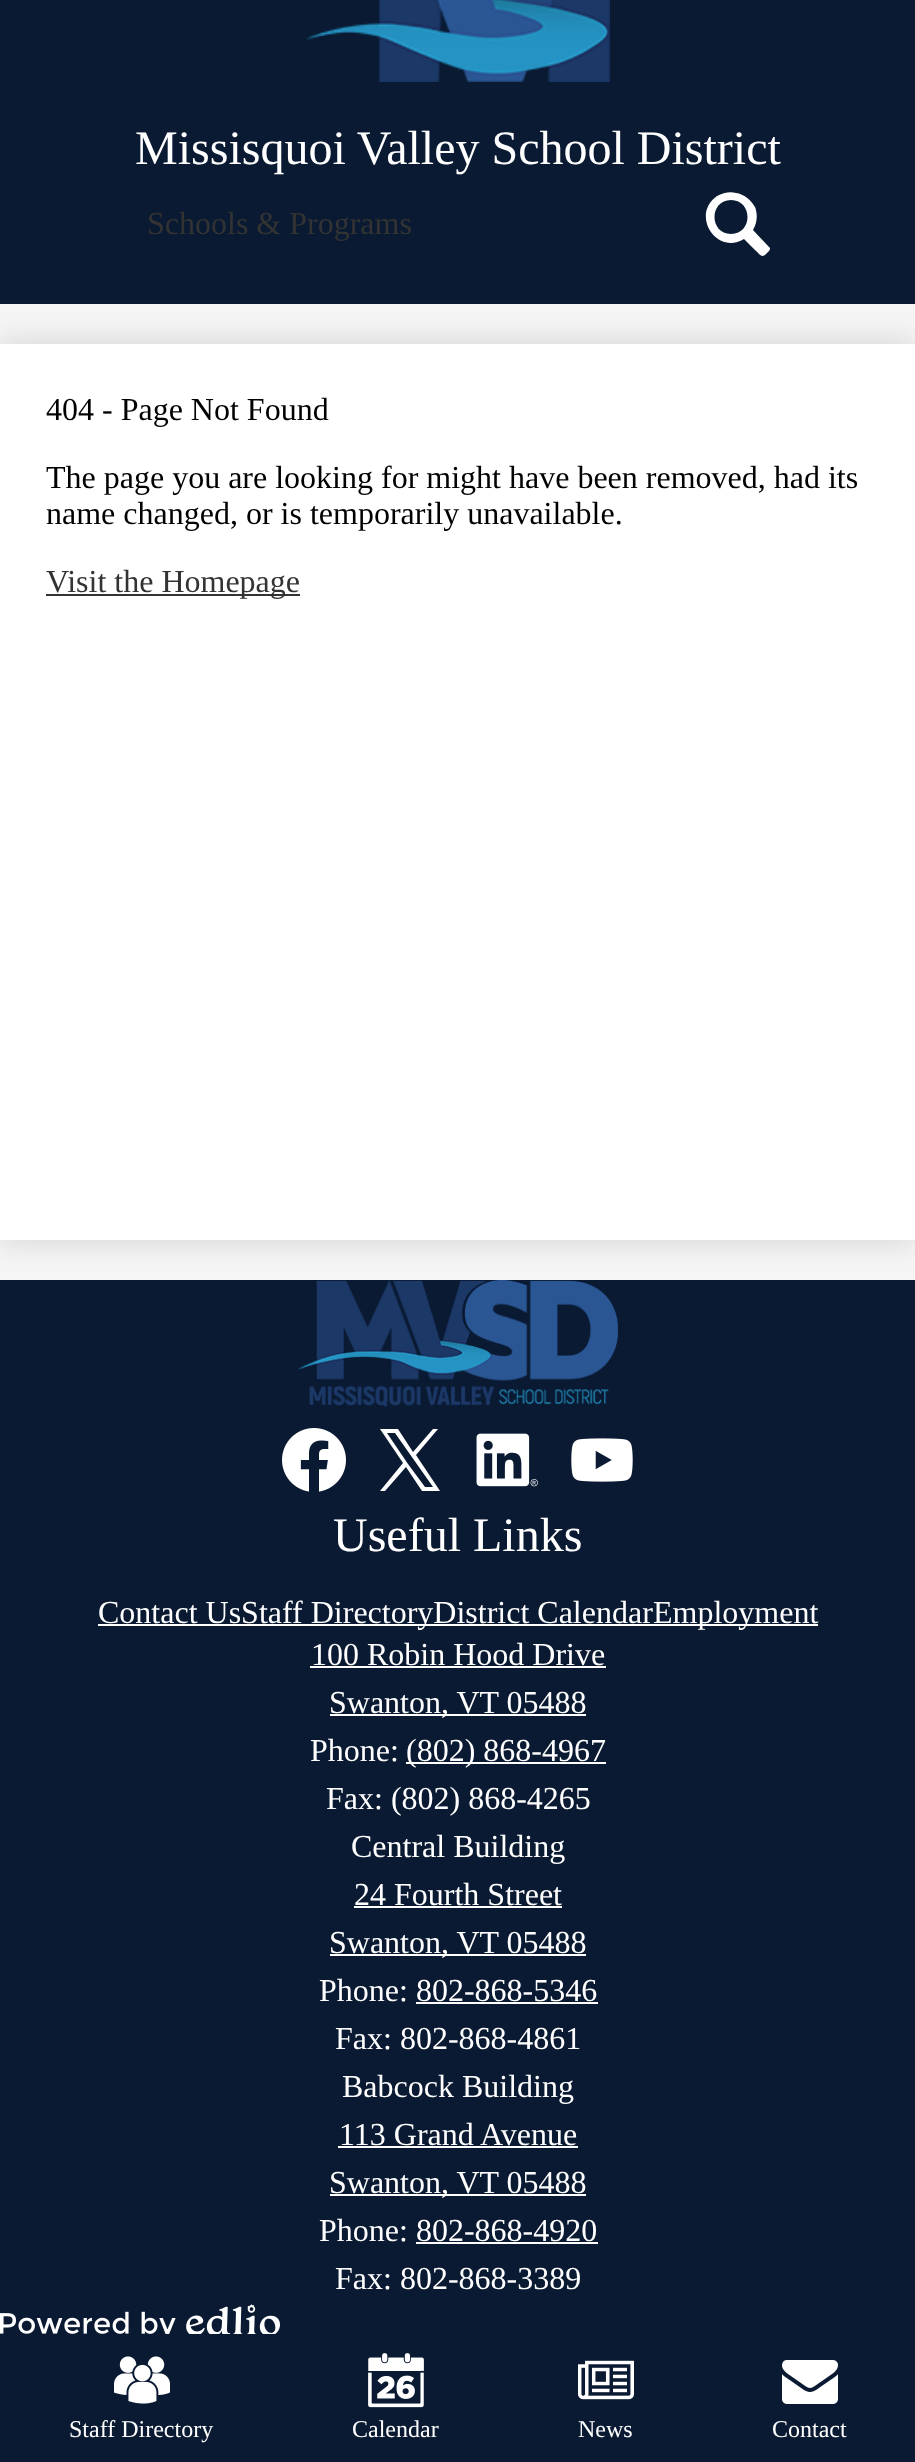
<svg xmlns="http://www.w3.org/2000/svg" width="915" height="2462" viewBox="0 0 915 2462">
  <defs>
    <filter id="blur1" x="-50%" y="-200%" width="200%" height="500%"><feGaussianBlur stdDeviation="16"/></filter>
  </defs>
  <rect width="100%" height="100%" fill="#f5f5f5"/>
  <rect x="0" y="1280" width="915" height="1182" fill="#0a1a32"/>
  <image x="298" y="1280" width="320" height="128" href="img2.png"/>
  <rect x="0" y="344" width="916" height="896" fill="#000000" fill-opacity="0.15" filter="url(#blur1)"/>
  <rect x="0" y="0" width="915" height="304" fill="#0a1a32"/>
  <image x="306" y="0" width="304" height="82" href="img1.png"/>
  <text x="135" y="164" font-family="Liberation Serif" font-size="48" fill="#ffffff">Missisquoi Valley School District</text>
  <text x="147" y="234" font-family="Liberation Serif" font-size="32" fill="#333333">Schools &amp; Programs</text>
  <path d="M769 247L753 230C757 223 758 215 755 207C751 200 744 194 736 193C730 191 723 193 717 196C690 215 717 256 744 239L755 250C759 253 761 259 766 254C768 252 772 249 769 247ZM731 234C709 234 709 200 731 200C753 200 753 234 731 234Z" fill="#ffffff"/>
  <rect x="0" y="344" width="915" height="896" fill="#ffffff"/>
  <text x="46" y="420" font-family="Liberation Serif" font-size="32" fill="#000000">404 - Page Not Found</text>
  <text x="46" y="488" font-family="Liberation Serif" font-size="32" fill="#000000">The page you are looking for might have been removed, had its</text>
  <text x="46" y="524" font-family="Liberation Serif" font-size="32" fill="#000000">name changed, or is temporarily unavailable.</text>
  <rect x="46" y="594" width="254" height="2" fill="#333333"/>
  <text x="46" y="592" font-family="Liberation Serif" font-size="32" fill="#333333">Visit the Homepage</text>
  <image x="282" y="1428" width="64" height="64" href="img3.png"/>
  <path d="M416 1455L438 1429H433L413 1452L398 1429H380L403 1463L380 1491H385L406 1467L422 1491H440ZM408 1464L387 1433H395L433 1487H425Z" fill="#ffffff"/>
  <image x="476" y="1433" width="62" height="54" href="img4.png"/>
  <image x="571" y="1438" width="62" height="44" href="img5.png"/>
  <text x="333" y="1551" font-family="Liberation Serif" font-size="48" fill="#ffffff">Useful Links</text>
  <rect x="98" y="1624" width="554" height="2" fill="#ffffff"/>
  <text x="98" y="1623" font-family="Liberation Serif" font-size="32" fill="#ffffff">Contact UsStaff DirectoryDistrict Calendar</text>
  <rect x="652" y="1624" width="166" height="2" fill="#ffffff"/>
  <text x="653" y="1623" font-family="Liberation Serif" font-size="32" fill="#ffffff">Employment</text>
  <text x="311" y="1665" font-family="Liberation Serif" font-size="32" fill="#ffffff">100 Robin Hood Drive</text>
  <rect x="310" y="1666" width="296" height="2" fill="#ffffff"/>
  <rect x="330" y="1714" width="256" height="2" fill="#ffffff"/>
  <text x="329" y="1713" font-family="Liberation Serif" font-size="32" fill="#ffffff">Swanton, VT 05488</text>
  <text x="310" y="1761" font-family="Liberation Serif" font-size="32" fill="#ffffff">Phone:</text>
  <rect x="406" y="1762" width="200" height="2" fill="#ffffff"/>
  <text x="406" y="1761" font-family="Liberation Serif" font-size="32" fill="#ffffff">(802) 868-4967</text>
  <text x="326" y="1809" font-family="Liberation Serif" font-size="32" fill="#ffffff">Fax: (802) 868-4265</text>
  <text x="351" y="1857" font-family="Liberation Serif" font-size="32" fill="#ffffff">Central Building</text>
  <text x="354" y="1905" font-family="Liberation Serif" font-size="32" fill="#ffffff">24 Fourth Street</text>
  <rect x="354" y="1906" width="208" height="2" fill="#ffffff"/>
  <rect x="330" y="1954" width="256" height="2" fill="#ffffff"/>
  <text x="329" y="1953" font-family="Liberation Serif" font-size="32" fill="#ffffff">Swanton, VT 05488</text>
  <text x="319" y="2001" font-family="Liberation Serif" font-size="32" fill="#ffffff">Phone: 802-868-5346</text>
  <rect x="416" y="2002" width="182" height="2" fill="#ffffff"/>
  <text x="335" y="2049" font-family="Liberation Serif" font-size="32" fill="#ffffff">Fax: 802-868-4861</text>
  <text x="342" y="2097" font-family="Liberation Serif" font-size="32" fill="#ffffff">Babcock Building</text>
  <text x="339" y="2145" font-family="Liberation Serif" font-size="32" fill="#ffffff">113 Grand Avenue</text>
  <rect x="338" y="2146" width="240" height="2" fill="#ffffff"/>
  <rect x="330" y="2194" width="256" height="2" fill="#ffffff"/>
  <text x="329" y="2193" font-family="Liberation Serif" font-size="32" fill="#ffffff">Swanton, VT 05488</text>
  <text x="319" y="2241" font-family="Liberation Serif" font-size="32" fill="#ffffff">Phone: 802-868-4920</text>
  <rect x="416" y="2242" width="182" height="2" fill="#ffffff"/>
  <text x="335" y="2289" font-family="Liberation Serif" font-size="32" fill="#ffffff">Fax: 802-868-3389</text>
  <image x="0" y="2304" width="280" height="30" href="img6.png"/>
  <image x="114" y="2356" width="56" height="48" href="img7.png"/>
  <text x="69" y="2437" font-family="Liberation Serif" font-size="24" fill="#ffffff">Staff Directory</text>
  <image x="368" y="2353" width="56" height="55" href="img8.png"/>
  <text x="352" y="2437" font-family="Liberation Serif" font-size="24" fill="#ffffff">Calendar</text>
  <image x="578" y="2360" width="56" height="40" href="img9.png"/>
  <text x="578" y="2437" font-family="Liberation Serif" font-size="24" fill="#ffffff">News</text>
  <image x="782" y="2360" width="56" height="44" href="img10.png"/>
  <text x="772" y="2437" font-family="Liberation Serif" font-size="24" fill="#ffffff">Contact</text>
</svg>
